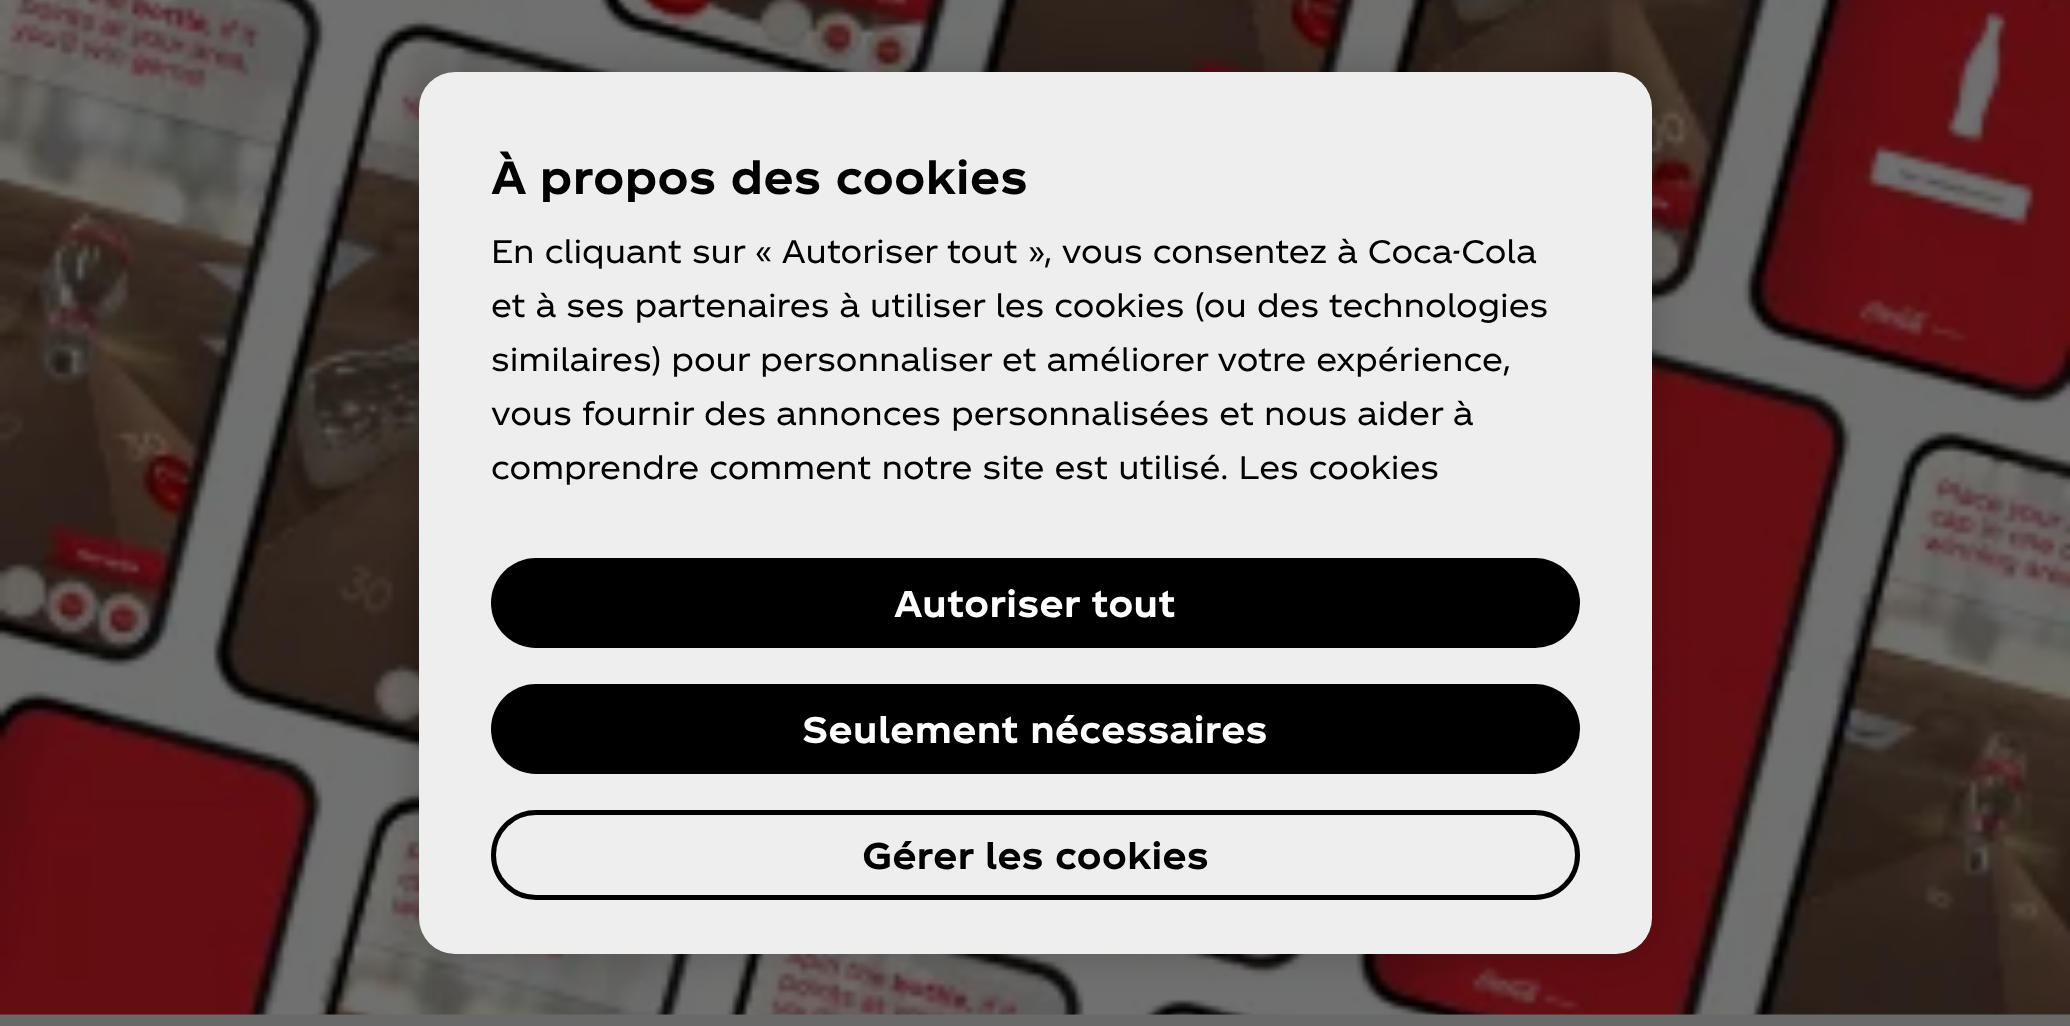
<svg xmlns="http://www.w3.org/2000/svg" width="2070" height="1026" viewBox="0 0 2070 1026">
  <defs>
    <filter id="blur1" x="-50%" y="-200%" width="200%" height="500%"><feGaussianBlur stdDeviation="20"/></filter>
  </defs>
  <rect width="100%" height="100%" fill="#696969"/>
  <image x="0" y="0" width="2070" height="1015" href="img1.png"/>
  <rect x="419" y="72" width="1233" height="882" rx="36" fill="#000000" fill-opacity="0.2" filter="url(#blur1)"/>
  <rect x="419" y="72" width="1233" height="882" rx="36" fill="#eeeeee"/>
  <text x="491" y="194" font-family="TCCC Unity" font-size="45" font-weight="bold" fill="#000000">À propos des cookies</text>
  <text x="491" y="263" font-family="TCCC Unity" font-size="31.5" fill="#000000">En cliquant sur « Autoriser tout », vous consentez à Coca-Cola</text>
  <text x="491" y="317" font-family="TCCC Unity" font-size="31.5" fill="#000000">et à ses partenaires à utiliser les cookies (ou des technologies</text>
  <text x="491" y="371" font-family="TCCC Unity" font-size="31.5" fill="#000000">similaires) pour personnaliser et améliorer votre expérience,</text>
  <text x="491" y="425" font-family="TCCC Unity" font-size="31.5" fill="#000000">vous fournir des annonces personnalisées et nous aider à</text>
  <text x="491" y="479" font-family="TCCC Unity" font-size="31.5" fill="#000000">comprendre comment notre site est utilisé. Les cookies</text>
  <rect x="491" y="558" width="1089" height="90" rx="45" fill="#000000"/>
  <text x="894" y="617" font-family="TCCC Unity" font-size="36" font-weight="bold" fill="#ffffff">Autoriser tout</text>
  <rect x="491" y="684" width="1089" height="90" rx="45" fill="#000000"/>
  <text x="802" y="743" font-family="TCCC Unity" font-size="36" font-weight="bold" fill="#ffffff">Seulement nécessaires</text>
  <rect x="493.5" y="812.5" width="1084" height="85" rx="42.5" fill="none" stroke="#000000" stroke-width="5"/>
  <text x="862" y="869" font-family="TCCC Unity" font-size="36" font-weight="bold" fill="#000000">Gérer les cookies</text>
</svg>
